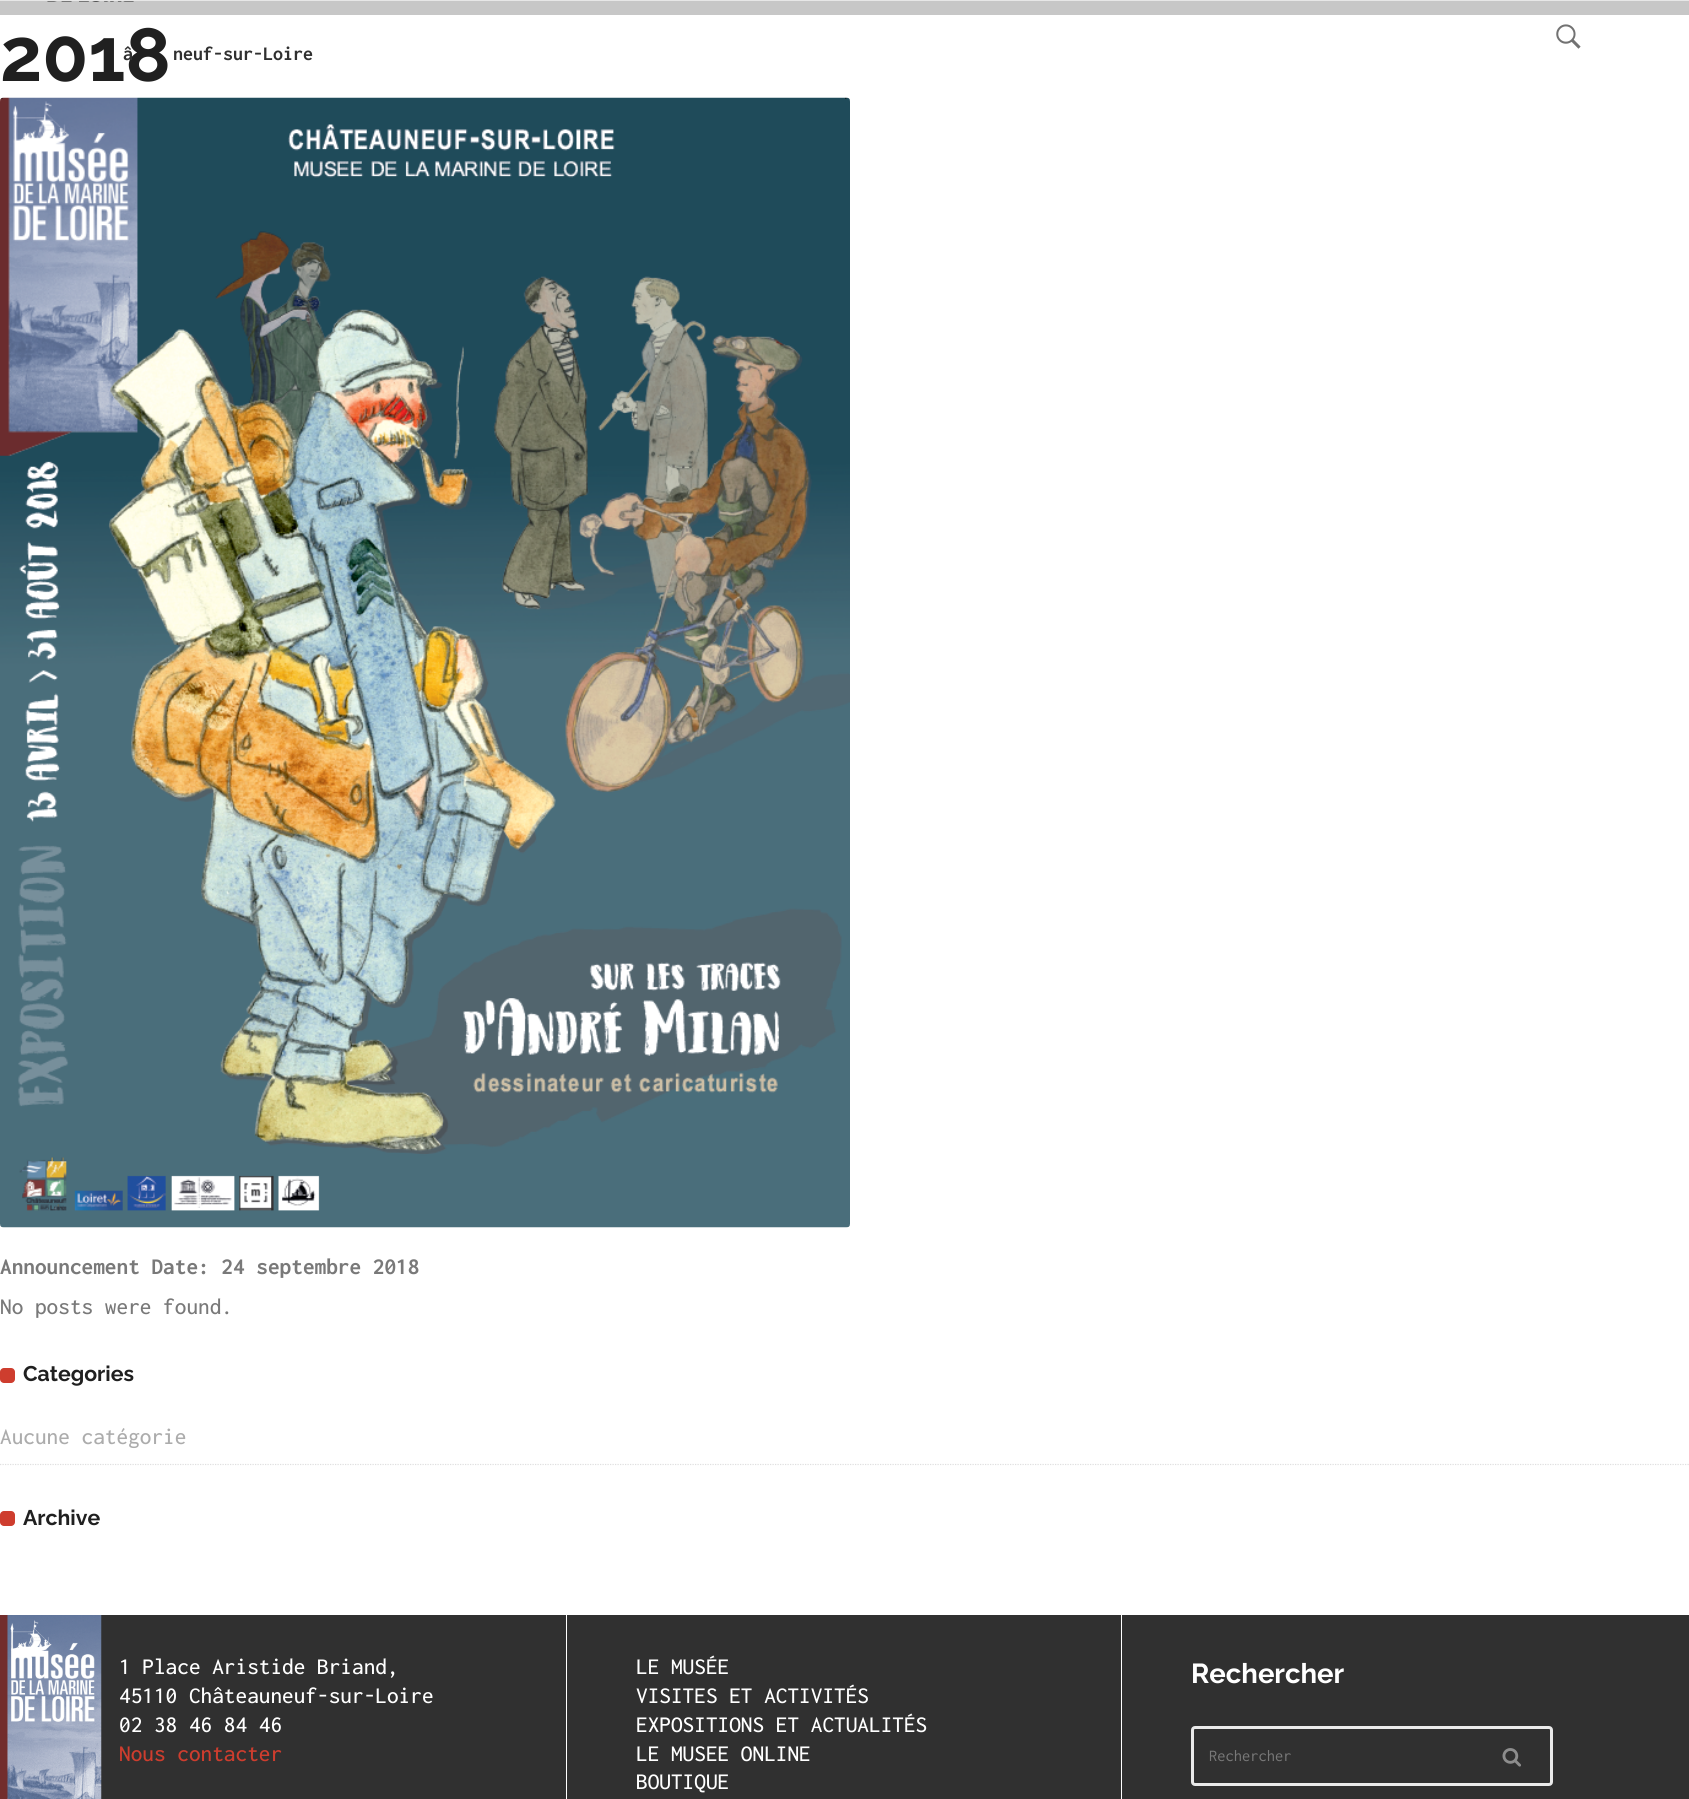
#include <cairo.h>
#include <math.h>
#include <stddef.h>

typedef struct { double x, y; const char *s; } line_t;

static void ink(cairo_t *ctx, unsigned color) {
    cairo_set_source_rgb(ctx, (color >> 16) / 255.0, (color >> 8 & 255) / 255.0, (color & 255) / 255.0);
}

static void round_path(cairo_t *ctx, double x, double y, double w, double h, double r) {
    cairo_new_sub_path(ctx);
    cairo_arc(ctx, x + w - r, y + h - r, r, 0, M_PI / 2);
    cairo_arc(ctx, x + r, y + h - r, r, M_PI / 2, M_PI);
    cairo_arc(ctx, x + r, y + r, r, M_PI, 1.5 * M_PI);
    cairo_arc(ctx, x + w - r, y + r, r, 1.5 * M_PI, 2 * M_PI);
    cairo_close_path(ctx);
}

static void paste(cairo_t *ctx, const char *path, double x, double y, double w, double h) {
    cairo_surface_t *image = cairo_image_surface_create_from_png(path);
    cairo_save(ctx);
    cairo_set_source_surface(ctx, image, x, y);
    cairo_rectangle(ctx, x, y, w, h);
    cairo_fill(ctx);
    cairo_restore(ctx);
    cairo_surface_destroy(image);
}

int main(void) {
    cairo_surface_t *surface = cairo_image_surface_create(CAIRO_FORMAT_RGB24, 1689, 1799);
    cairo_t *ctx = cairo_create(surface);
    cairo_font_options_t *options = cairo_font_options_create();
    cairo_font_options_set_hint_metrics(options, CAIRO_HINT_METRICS_OFF);
    cairo_font_options_set_hint_style(options, CAIRO_HINT_STYLE_NONE);
    cairo_set_font_options(ctx, options);
    cairo_set_miter_limit(ctx, 4);
    ink(ctx, 0xFFFFFF);
    cairo_paint(ctx);
    cairo_select_font_face(ctx, "Raleway", CAIRO_FONT_SLANT_NORMAL, CAIRO_FONT_WEIGHT_BOLD);
    cairo_set_font_size(ctx, 75);
    ink(ctx, 0x202020);
    cairo_move_to(ctx, 0, 81);
    cairo_show_text(ctx, "2018");
    paste(ctx, "media/1.png", 0, 97, 850, 1131);
    cairo_select_font_face(ctx, "Inconsolata", CAIRO_FONT_SLANT_NORMAL, CAIRO_FONT_WEIGHT_BOLD);
    cairo_set_font_size(ctx, 23.3);
    ink(ctx, 0x797979);
    cairo_move_to(ctx, 0, 1274);
    cairo_show_text(ctx, "Announcement Date: 24 septembre 2018");
    cairo_select_font_face(ctx, "Inconsolata Medium", CAIRO_FONT_SLANT_NORMAL, CAIRO_FONT_WEIGHT_NORMAL);
    cairo_move_to(ctx, 0, 1314);
    cairo_show_text(ctx, "No posts were found.");
    ink(ctx, 0xCE3D2E);
    round_path(ctx, 0, 1368, 15, 15, 4);
    cairo_fill(ctx);
    cairo_select_font_face(ctx, "Raleway", CAIRO_FONT_SLANT_NORMAL, CAIRO_FONT_WEIGHT_BOLD);
    cairo_set_font_size(ctx, 21.25);
    ink(ctx, 0x202020);
    cairo_move_to(ctx, 23, 1381);
    cairo_show_text(ctx, "Categories");
    cairo_new_path(ctx);
    cairo_move_to(ctx, 0, 1464.5);
    cairo_line_to(ctx, 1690, 1464.5);
    ink(ctx, 0xDFDFDF);
    cairo_set_line_width(ctx, 1.2);
    cairo_set_dash(ctx, (double[]){1.25, 1.25}, 2, 0);
    cairo_stroke(ctx);
    cairo_select_font_face(ctx, "Inconsolata Medium", CAIRO_FONT_SLANT_NORMAL, CAIRO_FONT_WEIGHT_NORMAL);
    cairo_set_font_size(ctx, 23.3);
    ink(ctx, 0xACACAC);
    cairo_move_to(ctx, 0, 1444);
    cairo_show_text(ctx, "Aucune catégorie");
    ink(ctx, 0xCE3D2E);
    round_path(ctx, 0, 1511, 15, 15, 4);
    cairo_fill(ctx);
    cairo_select_font_face(ctx, "Raleway", CAIRO_FONT_SLANT_NORMAL, CAIRO_FONT_WEIGHT_BOLD);
    cairo_set_font_size(ctx, 21.25);
    ink(ctx, 0x202020);
    cairo_move_to(ctx, 23, 1525);
    cairo_show_text(ctx, "Archive");
    ink(ctx, 0xC7C7C7);
    cairo_rectangle(ctx, 0, 1, 1689, 14);
    cairo_fill(ctx);
    paste(ctx, "media/2.png", 47, 1, 87, 1);
    ink(ctx, 0xE7E7E7);
    cairo_rectangle(ctx, 0, 0, 1689, 1);
    cairo_fill(ctx);
    paste(ctx, "media/3.png", 1556, 24, 25, 25);
    cairo_select_font_face(ctx, "Inconsolata", CAIRO_FONT_SLANT_NORMAL, CAIRO_FONT_WEIGHT_BOLD);
    cairo_set_font_size(ctx, 20);
    ink(ctx, 0x303030);
    cairo_move_to(ctx, 123, 60);
    cairo_show_text(ctx, "â");
    cairo_move_to(ctx, 173, 60);
    cairo_show_text(ctx, "neuf-sur-Loire");
    cairo_rectangle(ctx, 101, 1615, 1588, 184);
    cairo_fill(ctx);
    ink(ctx, 0xFFFFFF);
    cairo_rectangle(ctx, 566, 1615, 1, 184);
    cairo_fill(ctx);
    paste(ctx, "media/4.png", 0, 1615, 102, 184);
    cairo_select_font_face(ctx, "Inconsolata Medium", CAIRO_FONT_SLANT_NORMAL, CAIRO_FONT_WEIGHT_NORMAL);
    cairo_set_font_size(ctx, 23.3);
    {
        static const line_t items[] = {
            {119, 1674, "1 Place Aristide Briand,"},
            {119, 1703, "45110 Châteauneuf-sur-Loire"},
            {119, 1732, "02 38 46 84 46"},
        };
        for (size_t i = 0; i < sizeof items / sizeof *items; i++) {
            cairo_move_to(ctx, items[i].x, items[i].y);
            cairo_show_text(ctx, items[i].s);
        }
    }
    ink(ctx, 0xCE3D2E);
    cairo_move_to(ctx, 119, 1761);
    cairo_show_text(ctx, "Nous contacter");
    ink(ctx, 0xFFFFFF);
    cairo_rectangle(ctx, 1121, 1615, 1, 184);
    cairo_fill(ctx);
    {
        static const line_t items[] = {
            {636, 1674, "LE MUSÉE"},
            {636, 1703, "VISITES ET ACTIVITÉS"},
            {636, 1732, "EXPOSITIONS ET ACTUALITÉS"},
            {636, 1761, "LE MUSEE ONLINE"},
            {636, 1789, "BOUTIQUE"},
        };
        for (size_t i = 0; i < sizeof items / sizeof *items; i++) {
            cairo_move_to(ctx, items[i].x, items[i].y);
            cairo_show_text(ctx, items[i].s);
        }
    }
    cairo_select_font_face(ctx, "Raleway", CAIRO_FONT_SLANT_NORMAL, CAIRO_FONT_WEIGHT_BOLD);
    cairo_set_font_size(ctx, 27.5);
    cairo_move_to(ctx, 1191, 1683);
    cairo_show_text(ctx, "Rechercher");
    round_path(ctx, 1192.5, 1727.5, 359, 57, 2.5);
    ink(ctx, 0xEAEAEA);
    cairo_set_line_width(ctx, 3);
    cairo_set_dash(ctx, NULL, 0, 0);
    cairo_stroke(ctx);
    cairo_select_font_face(ctx, "Inconsolata", CAIRO_FONT_SLANT_NORMAL, CAIRO_FONT_WEIGHT_NORMAL);
    cairo_set_font_size(ctx, 16.5);
    ink(ctx, 0x797979);
    cairo_move_to(ctx, 1209, 1761);
    cairo_show_text(ctx, "Rechercher");
    paste(ctx, "media/5.png", 1502, 1748, 19, 19);
    cairo_surface_write_to_png(surface, "image.png");
    cairo_font_options_destroy(options);
    cairo_destroy(ctx);
    cairo_surface_destroy(surface);
    return 0;
}
